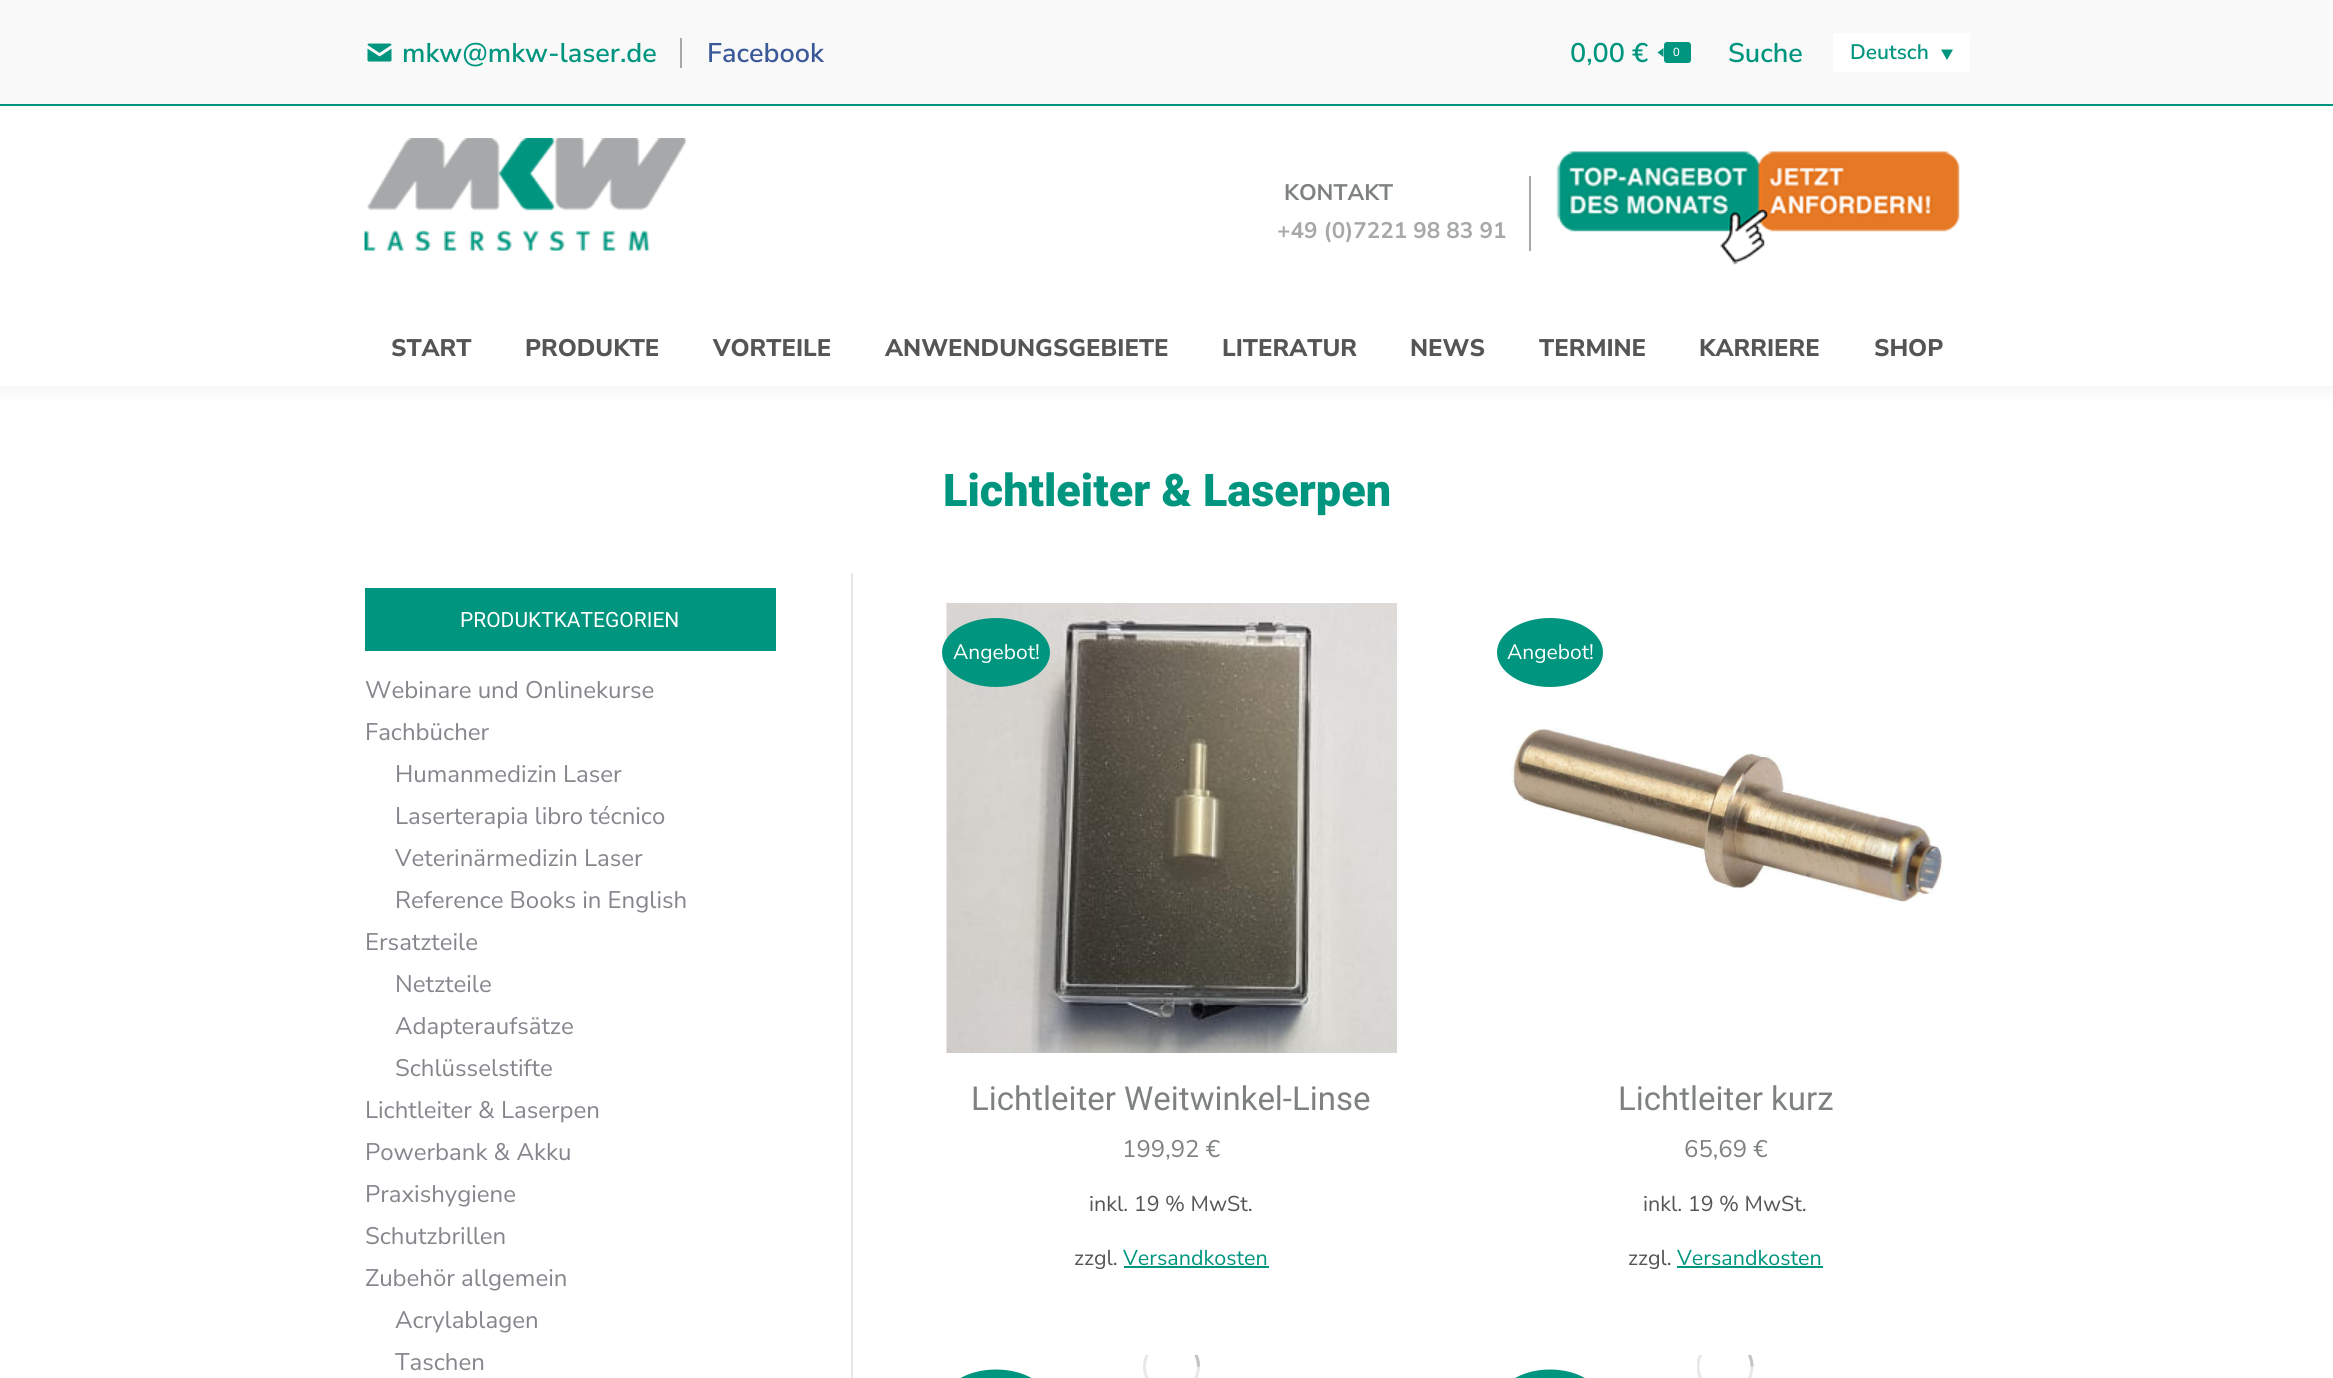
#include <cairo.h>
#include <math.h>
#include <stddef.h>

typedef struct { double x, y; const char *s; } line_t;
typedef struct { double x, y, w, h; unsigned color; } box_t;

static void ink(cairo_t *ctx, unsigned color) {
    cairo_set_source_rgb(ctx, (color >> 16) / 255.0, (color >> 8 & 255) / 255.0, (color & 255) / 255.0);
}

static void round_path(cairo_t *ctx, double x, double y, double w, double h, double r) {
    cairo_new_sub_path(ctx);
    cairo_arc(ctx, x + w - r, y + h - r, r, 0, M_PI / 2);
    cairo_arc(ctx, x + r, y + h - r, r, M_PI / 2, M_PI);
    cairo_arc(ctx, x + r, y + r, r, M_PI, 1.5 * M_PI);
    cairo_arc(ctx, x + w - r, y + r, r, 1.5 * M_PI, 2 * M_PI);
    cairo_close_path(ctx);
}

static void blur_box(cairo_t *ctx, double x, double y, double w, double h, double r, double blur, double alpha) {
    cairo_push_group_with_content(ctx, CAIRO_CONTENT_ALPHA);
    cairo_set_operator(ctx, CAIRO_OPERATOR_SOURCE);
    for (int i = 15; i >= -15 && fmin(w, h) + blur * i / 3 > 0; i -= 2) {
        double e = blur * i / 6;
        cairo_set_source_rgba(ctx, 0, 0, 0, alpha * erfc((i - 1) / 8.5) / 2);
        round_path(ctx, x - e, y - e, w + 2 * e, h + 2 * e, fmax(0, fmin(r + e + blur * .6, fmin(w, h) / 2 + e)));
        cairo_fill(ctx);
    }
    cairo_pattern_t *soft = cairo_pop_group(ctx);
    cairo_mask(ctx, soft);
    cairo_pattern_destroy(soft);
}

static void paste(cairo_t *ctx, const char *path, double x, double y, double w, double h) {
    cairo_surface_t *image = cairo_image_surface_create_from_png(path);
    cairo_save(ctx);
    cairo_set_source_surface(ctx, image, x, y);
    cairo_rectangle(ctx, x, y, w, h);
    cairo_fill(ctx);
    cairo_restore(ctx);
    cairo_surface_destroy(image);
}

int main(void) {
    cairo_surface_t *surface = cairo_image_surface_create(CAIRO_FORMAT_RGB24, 2333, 1378);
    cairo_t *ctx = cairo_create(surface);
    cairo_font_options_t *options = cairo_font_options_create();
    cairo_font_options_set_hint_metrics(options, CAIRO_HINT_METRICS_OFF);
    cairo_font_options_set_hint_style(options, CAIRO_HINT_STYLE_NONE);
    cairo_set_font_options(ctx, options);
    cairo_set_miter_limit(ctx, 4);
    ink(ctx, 0xFFFFFF);
    cairo_paint(ctx);
    ink(ctx, 0x000000);
    blur_box(ctx, -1, -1, 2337, 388, 0, 11, 0.07);
    {
        static const box_t items[] = {
            {0, 106, 2333, 280, 0xFFFFFF},
            {0, 0, 2333, 104, 0xF9F9F9},
            {680, 38, 2, 30, 0xA6A8A9},
        };
        for (size_t i = 0; i < sizeof items / sizeof *items; i++) {
            ink(ctx, items[i].color);
            cairo_rectangle(ctx, items[i].x, items[i].y, items[i].w, items[i].h);
            cairo_fill(ctx);
        }
    }
    paste(ctx, "media/1.png", 367, 43, 25, 19);
    cairo_select_font_face(ctx, "Nunito Sans SemiBold", CAIRO_FONT_SLANT_NORMAL, CAIRO_FONT_WEIGHT_NORMAL);
    cairo_set_font_size(ctx, 27);
    ink(ctx, 0x00957E);
    cairo_move_to(ctx, 402, 62);
    cairo_show_text(ctx, "mkw@mkw-laser.de");
    ink(ctx, 0x3B5998);
    cairo_move_to(ctx, 707, 62);
    cairo_show_text(ctx, "Facebook");
    ink(ctx, 0x00957E);
    cairo_move_to(ctx, 1570, 62);
    cairo_show_text(ctx, "0,00 €");
    round_path(ctx, 1664, 42, 27, 21, 3);
    cairo_fill(ctx);
    cairo_new_path(ctx);
    cairo_move_to(ctx, 1663.5, 48);
    cairo_line_to(ctx, 1663.5, 57);
    cairo_line_to(ctx, 1657.5, 52.5);
    cairo_close_path(ctx);
    cairo_fill(ctx);
    cairo_select_font_face(ctx, "Liberation Sans", CAIRO_FONT_SLANT_NORMAL, CAIRO_FONT_WEIGHT_NORMAL);
    cairo_set_font_size(ctx, 12);
    ink(ctx, 0xFFFFFF);
    cairo_move_to(ctx, 1673, 56);
    cairo_show_text(ctx, "0");
    cairo_select_font_face(ctx, "Nunito Sans SemiBold", CAIRO_FONT_SLANT_NORMAL, CAIRO_FONT_WEIGHT_NORMAL);
    cairo_set_font_size(ctx, 27);
    ink(ctx, 0x00957E);
    cairo_move_to(ctx, 1728, 62);
    cairo_show_text(ctx, "Suche");
    ink(ctx, 0xFFFFFF);
    cairo_rectangle(ctx, 1833, 33, 137, 39);
    cairo_fill(ctx);
    cairo_set_font_size(ctx, 21);
    ink(ctx, 0x00957E);
    cairo_move_to(ctx, 1850, 59);
    cairo_show_text(ctx, "Deutsch");
    cairo_new_path(ctx);
    cairo_move_to(ctx, 1941, 49.5);
    cairo_line_to(ctx, 1953, 49.5);
    cairo_line_to(ctx, 1947, 60);
    cairo_close_path(ctx);
    cairo_fill(ctx);
    cairo_rectangle(ctx, 0, 104, 2333, 2);
    cairo_fill(ctx);
    paste(ctx, "media/2.png", 364, 138, 322, 113);
    ink(ctx, 0xA6A8A9);
    cairo_rectangle(ctx, 1529, 176, 2, 75);
    cairo_fill(ctx);
    cairo_select_font_face(ctx, "Nunito Sans", CAIRO_FONT_SLANT_NORMAL, CAIRO_FONT_WEIGHT_BOLD);
    cairo_set_font_size(ctx, 22.5);
    ink(ctx, 0x7E8182);
    cairo_move_to(ctx, 1284, 200);
    cairo_show_text(ctx, "KONTAKT");
    ink(ctx, 0xA6A8A9);
    cairo_move_to(ctx, 1277, 238);
    cairo_show_text(ctx, "+49 (0)7221 98 83 91");
    paste(ctx, "media/3.png", 1556, 151, 404, 114);
    cairo_select_font_face(ctx, "Nunito Sans ExtraBold", CAIRO_FONT_SLANT_NORMAL, CAIRO_FONT_WEIGHT_NORMAL);
    cairo_set_font_size(ctx, 24);
    ink(ctx, 0x555555);
    {
        static const line_t items[] = {
            {391, 356, "START"},
            {525, 356, "PRODUKTE"},
            {713, 356, "VORTEILE"},
            {885, 356, "ANWENDUNGSGEBIETE"},
            {1222, 356, "LITERATUR"},
            {1410, 356, "NEWS"},
            {1539, 356, "TERMINE"},
            {1699, 356, "KARRIERE"},
            {1874, 356, "SHOP"},
        };
        for (size_t i = 0; i < sizeof items / sizeof *items; i++) {
            cairo_move_to(ctx, items[i].x, items[i].y);
            cairo_show_text(ctx, items[i].s);
        }
    }
    cairo_select_font_face(ctx, "Roboto Black", CAIRO_FONT_SLANT_NORMAL, CAIRO_FONT_WEIGHT_NORMAL);
    cairo_set_font_size(ctx, 45);
    ink(ctx, 0x00957E);
    cairo_move_to(ctx, 943, 506);
    cairo_show_text(ctx, "Lichtleiter & Laserpen");
    ink(ctx, 0xE7E7E7);
    cairo_rectangle(ctx, 851, 573, 2, 805);
    cairo_fill(ctx);
    ink(ctx, 0x00957E);
    cairo_rectangle(ctx, 365, 588, 411, 63);
    cairo_fill(ctx);
    cairo_select_font_face(ctx, "Roboto", CAIRO_FONT_SLANT_NORMAL, CAIRO_FONT_WEIGHT_NORMAL);
    cairo_set_font_size(ctx, 21);
    ink(ctx, 0xFFFFFF);
    cairo_move_to(ctx, 460, 627);
    cairo_show_text(ctx, "PRODUKTKATEGORIEN");
    cairo_select_font_face(ctx, "Nunito Sans", CAIRO_FONT_SLANT_NORMAL, CAIRO_FONT_WEIGHT_NORMAL);
    cairo_set_font_size(ctx, 24);
    ink(ctx, 0x85868C);
    {
        static const line_t items[] = {
            {365, 698, "Webinare und Onlinekurse"},
            {365, 740, "Fachbücher"},
            {395, 782, "Humanmedizin Laser"},
            {395, 824, "Laserterapia libro técnico"},
            {395, 866, "Veterinärmedizin Laser"},
            {395, 908, "Reference Books in English"},
            {365, 950, "Ersatzteile"},
            {395, 992, "Netzteile"},
            {395, 1034, "Adapteraufsätze"},
            {395, 1076, "Schlüsselstifte"},
            {365, 1118, "Lichtleiter & Laserpen"},
            {365, 1160, "Powerbank & Akku"},
            {365, 1202, "Praxishygiene"},
            {365, 1244, "Schutzbrillen"},
            {365, 1286, "Zubehör allgemein"},
            {395, 1328, "Acrylablagen"},
            {395, 1370, "Taschen"},
        };
        for (size_t i = 0; i < sizeof items / sizeof *items; i++) {
            cairo_move_to(ctx, items[i].x, items[i].y);
            cairo_show_text(ctx, items[i].s);
        }
    }
    paste(ctx, "media/4.png", 946, 603, 451, 450);
    ink(ctx, 0x00957E);
    cairo_new_path(ctx);
    cairo_move_to(ctx, 996, 618);
    cairo_curve_to(ctx, 1026, 618, 1050, 633.5, 1050, 652.5);
    cairo_curve_to(ctx, 1050, 671.5, 1026, 687, 996, 687);
    cairo_curve_to(ctx, 966, 687, 942, 671.5, 942, 652.5);
    cairo_curve_to(ctx, 942, 633.5, 966, 618, 996, 618);
    cairo_close_path(ctx);
    cairo_fill(ctx);
    cairo_set_font_size(ctx, 21);
    ink(ctx, 0xFFFFFF);
    cairo_move_to(ctx, 953, 659);
    cairo_show_text(ctx, "Angebot!");
    cairo_select_font_face(ctx, "Roboto", CAIRO_FONT_SLANT_NORMAL, CAIRO_FONT_WEIGHT_NORMAL);
    cairo_set_font_size(ctx, 33);
    ink(ctx, 0x7E8182);
    cairo_move_to(ctx, 971, 1110);
    cairo_show_text(ctx, "Lichtleiter Weitwinkel-Linse");
    cairo_select_font_face(ctx, "Nunito Sans", CAIRO_FONT_SLANT_NORMAL, CAIRO_FONT_WEIGHT_NORMAL);
    cairo_set_font_size(ctx, 24);
    cairo_move_to(ctx, 1122, 1157);
    cairo_show_text(ctx, "199,92 €");
    cairo_set_font_size(ctx, 21.5);
    ink(ctx, 0x555555);
    cairo_move_to(ctx, 1089, 1211);
    cairo_show_text(ctx, "inkl. 19 % MwSt.");
    cairo_move_to(ctx, 1074, 1265);
    cairo_show_text(ctx, "zzgl.");
    ink(ctx, 0x00957E);
    cairo_move_to(ctx, 1123, 1265);
    cairo_show_text(ctx, "Versandkosten");
    cairo_rectangle(ctx, 1124, 1266, 145, 2);
    cairo_fill(ctx);
    cairo_new_path(ctx);
    cairo_move_to(ctx, 1550, 618);
    cairo_curve_to(ctx, 1579.5, 618, 1603, 633.5, 1603, 652.5);
    cairo_curve_to(ctx, 1603, 671.5, 1579.5, 687, 1550, 687);
    cairo_curve_to(ctx, 1520.5, 687, 1497, 671.5, 1497, 652.5);
    cairo_curve_to(ctx, 1497, 633.5, 1520.5, 618, 1550, 618);
    cairo_close_path(ctx);
    cairo_fill(ctx);
    cairo_set_font_size(ctx, 21);
    ink(ctx, 0xFFFFFF);
    cairo_move_to(ctx, 1507, 659);
    cairo_show_text(ctx, "Angebot!");
    paste(ctx, "media/5.png", 1511, 726, 433, 179);
    cairo_select_font_face(ctx, "Roboto", CAIRO_FONT_SLANT_NORMAL, CAIRO_FONT_WEIGHT_NORMAL);
    cairo_set_font_size(ctx, 33);
    ink(ctx, 0x7E8182);
    cairo_move_to(ctx, 1618, 1110);
    cairo_show_text(ctx, "Lichtleiter kurz");
    cairo_select_font_face(ctx, "Nunito Sans", CAIRO_FONT_SLANT_NORMAL, CAIRO_FONT_WEIGHT_NORMAL);
    cairo_set_font_size(ctx, 24);
    cairo_move_to(ctx, 1684, 1157);
    cairo_show_text(ctx, "65,69 €");
    cairo_set_font_size(ctx, 21.5);
    ink(ctx, 0x555555);
    cairo_move_to(ctx, 1643, 1211);
    cairo_show_text(ctx, "inkl. 19 % MwSt.");
    cairo_move_to(ctx, 1628, 1265);
    cairo_show_text(ctx, "zzgl.");
    ink(ctx, 0x00957E);
    cairo_move_to(ctx, 1677, 1265);
    cairo_show_text(ctx, "Versandkosten");
    cairo_rectangle(ctx, 1677, 1266, 146, 2);
    cairo_fill(ctx);
    cairo_new_path(ctx);
    cairo_move_to(ctx, 996, 1369.5);
    cairo_curve_to(ctx, 1026, 1369.5, 1050, 1385, 1050, 1404);
    cairo_curve_to(ctx, 1050, 1423, 1026, 1438.5, 996, 1438.5);
    cairo_curve_to(ctx, 966, 1438.5, 942, 1423, 942, 1404);
    cairo_curve_to(ctx, 942, 1385, 966, 1369.5, 996, 1369.5);
    cairo_close_path(ctx);
    cairo_fill(ctx);
    cairo_save(ctx);
    cairo_rectangle(ctx, 1143, 1355, 57, 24);
    cairo_clip(ctx);
    cairo_arc(ctx, 1171.5, 1366.5, 27, 0, 2 * M_PI);
    ink(ctx, 0xE8E8E8);
    cairo_set_line_width(ctx, 3);
    cairo_stroke(ctx);
    cairo_new_path(ctx);
    cairo_move_to(ctx, 1198.5, 1366.5);
    cairo_curve_to(ctx, 1198.5, 1351.5, 1186.5, 1339.5, 1171.5, 1339.5);
    cairo_set_source_rgba(ctx, 0.333, 0.333, 0.333, 0.25);
    cairo_stroke(ctx);
    cairo_restore(ctx);
    cairo_new_path(ctx);
    cairo_move_to(ctx, 1550, 1369.5);
    cairo_curve_to(ctx, 1579.5, 1369.5, 1603, 1385, 1603, 1404);
    cairo_curve_to(ctx, 1603, 1423, 1579.5, 1438.5, 1550, 1438.5);
    cairo_curve_to(ctx, 1520.5, 1438.5, 1497, 1423, 1497, 1404);
    cairo_curve_to(ctx, 1497, 1385, 1520.5, 1369.5, 1550, 1369.5);
    cairo_close_path(ctx);
    cairo_fill(ctx);
    cairo_save(ctx);
    cairo_rectangle(ctx, 1697, 1355, 57, 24);
    cairo_clip(ctx);
    cairo_arc(ctx, 1725, 1366.5, 27, 0, 2 * M_PI);
    ink(ctx, 0xE8E8E8);
    cairo_set_line_width(ctx, 3);
    cairo_stroke(ctx);
    cairo_new_path(ctx);
    cairo_move_to(ctx, 1752, 1366.5);
    cairo_curve_to(ctx, 1752, 1351.5, 1740, 1339.5, 1725, 1339.5);
    cairo_set_source_rgba(ctx, 0.333, 0.333, 0.333, 0.25);
    cairo_stroke(ctx);
    cairo_restore(ctx);
    cairo_surface_write_to_png(surface, "image.png");
    cairo_font_options_destroy(options);
    cairo_destroy(ctx);
    cairo_surface_destroy(surface);
    return 0;
}
